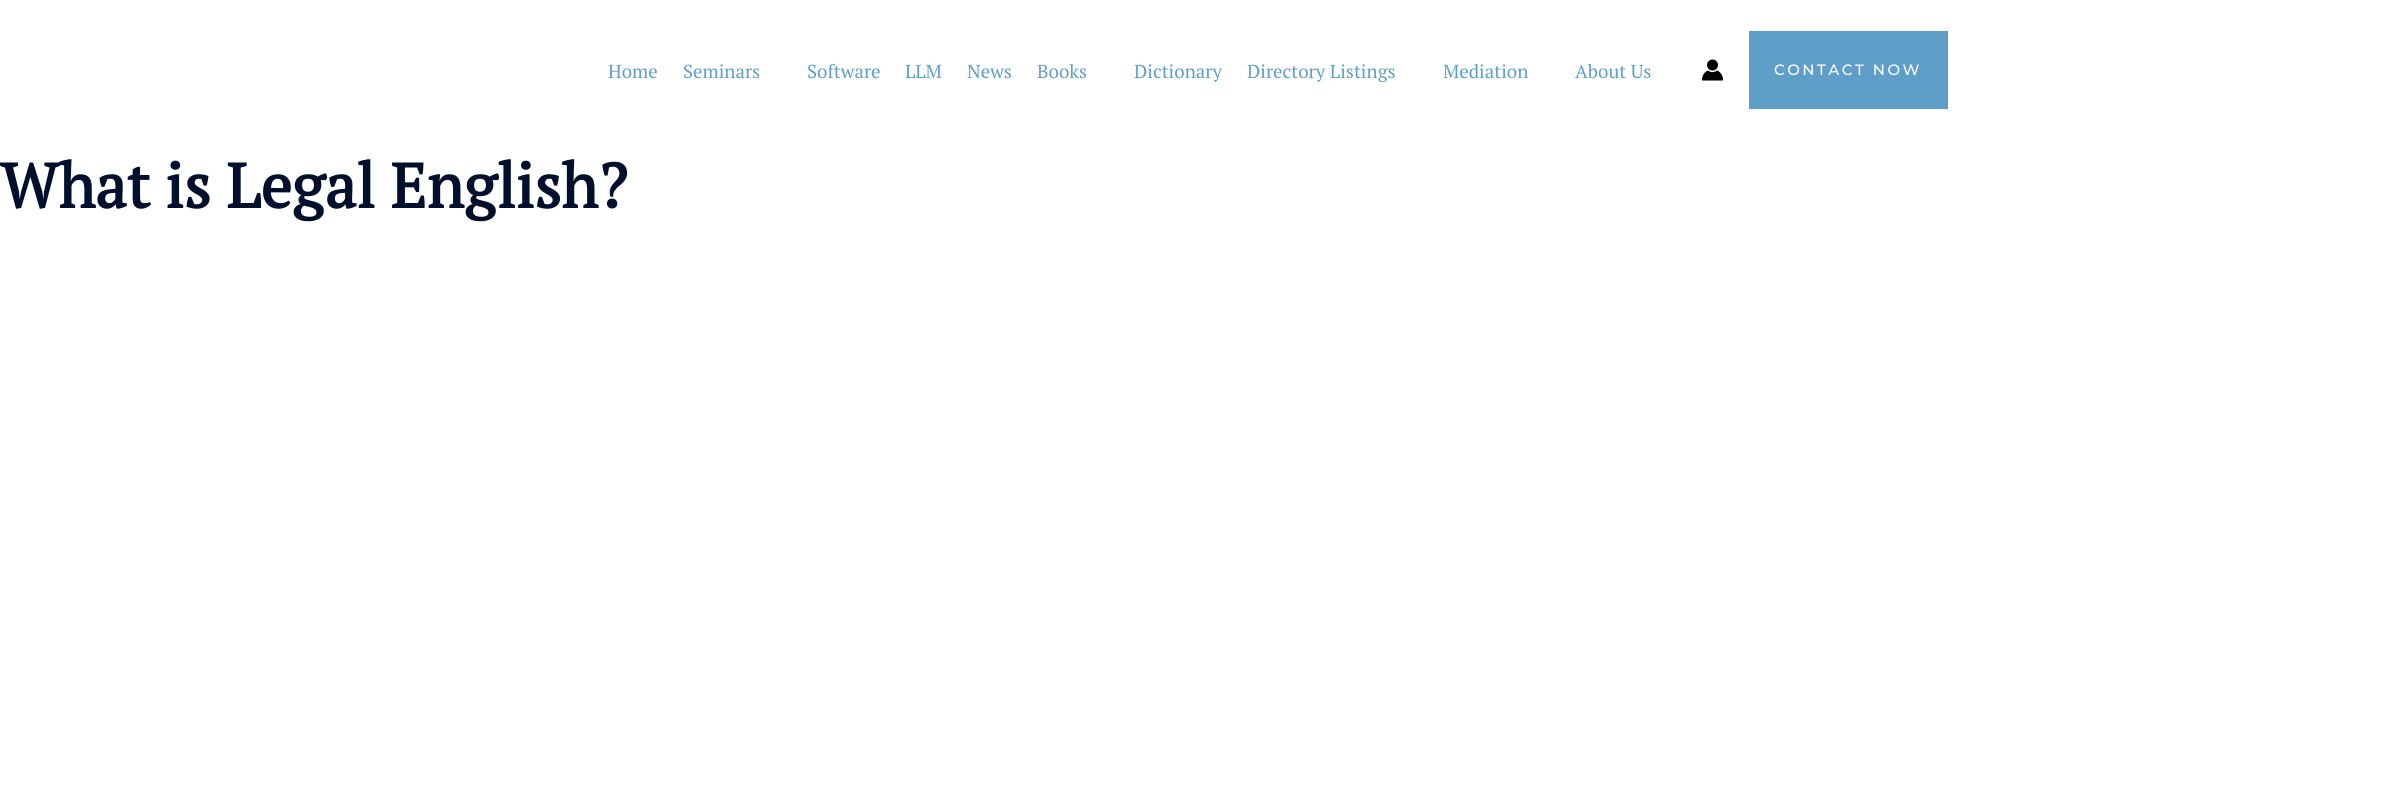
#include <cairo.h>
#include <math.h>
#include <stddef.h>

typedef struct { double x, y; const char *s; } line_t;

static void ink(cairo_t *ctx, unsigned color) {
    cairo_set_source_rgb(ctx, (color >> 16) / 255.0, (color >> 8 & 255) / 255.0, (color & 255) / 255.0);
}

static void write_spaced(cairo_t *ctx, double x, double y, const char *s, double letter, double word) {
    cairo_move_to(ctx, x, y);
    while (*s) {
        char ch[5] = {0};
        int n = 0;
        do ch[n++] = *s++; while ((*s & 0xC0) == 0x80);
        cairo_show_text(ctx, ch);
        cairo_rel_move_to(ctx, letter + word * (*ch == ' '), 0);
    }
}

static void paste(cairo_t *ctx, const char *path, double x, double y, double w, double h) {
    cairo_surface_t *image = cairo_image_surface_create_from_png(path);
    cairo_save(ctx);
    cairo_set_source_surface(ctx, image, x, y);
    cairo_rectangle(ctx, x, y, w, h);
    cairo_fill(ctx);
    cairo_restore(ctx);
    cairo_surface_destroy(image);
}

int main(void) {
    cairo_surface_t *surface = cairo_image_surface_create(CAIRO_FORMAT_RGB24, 2393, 811);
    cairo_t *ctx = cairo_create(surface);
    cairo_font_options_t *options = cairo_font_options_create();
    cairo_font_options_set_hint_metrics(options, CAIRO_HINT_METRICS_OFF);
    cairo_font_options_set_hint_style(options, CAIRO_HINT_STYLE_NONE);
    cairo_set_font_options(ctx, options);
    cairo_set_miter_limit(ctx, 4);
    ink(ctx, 0xFFFFFF);
    cairo_paint(ctx);
    cairo_select_font_face(ctx, "PT Serif", CAIRO_FONT_SLANT_NORMAL, CAIRO_FONT_WEIGHT_NORMAL);
    cairo_set_font_size(ctx, 18.75);
    ink(ctx, 0x609ECA);
    {
        static const line_t items[] = {
            {608, 78, "Home"},
            {683, 78, "Seminars"},
            {807, 78, "Software"},
            {905, 78, "LLM"},
            {967, 78, "News"},
            {1037, 78, "Books"},
            {1134, 78, "Dictionary"},
            {1247, 78, "Directory Listings"},
            {1443, 78, "Mediation"},
            {1575, 78, "About Us"},
        };
        for (size_t i = 0; i < sizeof items / sizeof *items; i++) {
            cairo_move_to(ctx, items[i].x, items[i].y);
            cairo_show_text(ctx, items[i].s);
        }
    }
    paste(ctx, "media/1.png", 1702, 59, 22, 22);
    cairo_rectangle(ctx, 1749, 31, 199, 78);
    cairo_fill(ctx);
    cairo_select_font_face(ctx, "Montserrat Thin", CAIRO_FONT_SLANT_NORMAL, CAIRO_FONT_WEIGHT_NORMAL);
    cairo_set_font_size(ctx, 15);
    ink(ctx, 0xFFFFFF);
    write_spaced(ctx, 1774, 75, "CONTACT NOW", 2.5, 0);
    cairo_select_font_face(ctx, "PT Serif", CAIRO_FONT_SLANT_NORMAL, CAIRO_FONT_WEIGHT_BOLD);
    cairo_set_font_size(ctx, 62.5);
    ink(ctx, 0x000F2B);
    cairo_move_to(ctx, 0, 208);
    cairo_show_text(ctx, "What is Legal English?");
    cairo_surface_write_to_png(surface, "image.png");
    cairo_font_options_destroy(options);
    cairo_destroy(ctx);
    cairo_surface_destroy(surface);
    return 0;
}
